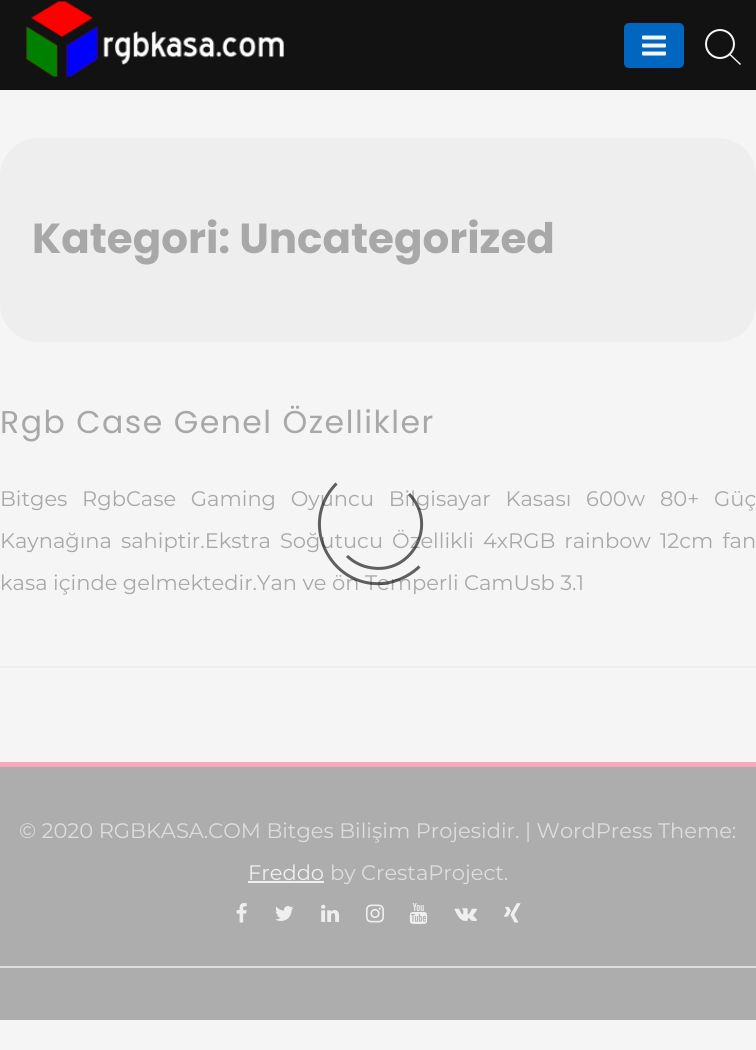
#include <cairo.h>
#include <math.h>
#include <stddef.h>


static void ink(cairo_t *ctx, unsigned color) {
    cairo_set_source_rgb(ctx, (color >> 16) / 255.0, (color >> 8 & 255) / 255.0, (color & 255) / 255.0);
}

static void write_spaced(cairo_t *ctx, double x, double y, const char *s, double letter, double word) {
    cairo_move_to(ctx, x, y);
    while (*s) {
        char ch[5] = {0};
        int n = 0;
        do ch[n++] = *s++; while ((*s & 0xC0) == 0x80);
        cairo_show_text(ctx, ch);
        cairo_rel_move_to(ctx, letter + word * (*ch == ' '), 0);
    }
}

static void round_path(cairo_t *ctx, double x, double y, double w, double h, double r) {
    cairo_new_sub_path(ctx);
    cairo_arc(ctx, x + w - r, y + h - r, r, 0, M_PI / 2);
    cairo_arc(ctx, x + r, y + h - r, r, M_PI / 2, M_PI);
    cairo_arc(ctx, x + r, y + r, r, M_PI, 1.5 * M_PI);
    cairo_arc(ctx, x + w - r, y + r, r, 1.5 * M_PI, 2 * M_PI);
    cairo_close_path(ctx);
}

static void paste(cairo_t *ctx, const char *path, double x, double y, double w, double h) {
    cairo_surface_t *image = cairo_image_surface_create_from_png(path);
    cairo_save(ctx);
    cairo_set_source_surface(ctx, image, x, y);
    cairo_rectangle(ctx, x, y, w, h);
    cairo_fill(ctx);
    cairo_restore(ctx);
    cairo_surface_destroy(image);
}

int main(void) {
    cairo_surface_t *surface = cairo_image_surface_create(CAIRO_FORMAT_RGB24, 756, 1050);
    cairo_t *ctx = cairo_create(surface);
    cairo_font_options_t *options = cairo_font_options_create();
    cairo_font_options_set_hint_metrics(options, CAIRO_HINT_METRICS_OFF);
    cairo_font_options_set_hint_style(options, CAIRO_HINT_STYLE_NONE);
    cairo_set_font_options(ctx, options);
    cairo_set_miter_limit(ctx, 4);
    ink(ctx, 0xF5F5F5);
    cairo_paint(ctx);
    ink(ctx, 0x121212);
    cairo_rectangle(ctx, 0, 0, 756, 90);
    cairo_fill(ctx);
    paste(ctx, "media/1.png", 26, 1, 258, 76);
    ink(ctx, 0x0066BF);
    round_path(ctx, 624, 23, 60, 45, 5);
    cairo_fill(ctx);
    paste(ctx, "media/2.png", 642, 35, 24, 21);
    cairo_arc(ctx, 720, 44, 14, 0, 2 * M_PI);
    ink(ctx, 0xF5F5F5);
    cairo_stroke(ctx);
    cairo_new_path(ctx);
    cairo_move_to(ctx, 730, 53.5);
    cairo_line_to(ctx, 741, 64);
    cairo_line_to(ctx, 740, 65);
    cairo_line_to(ctx, 729, 54.5);
    cairo_close_path(ctx);
    cairo_fill(ctx);
    ink(ctx, 0xEEEEEE);
    round_path(ctx, 0, 138, 756, 204, 38);
    cairo_fill(ctx);
    cairo_select_font_face(ctx, "Poppins", CAIRO_FONT_SLANT_NORMAL, CAIRO_FONT_WEIGHT_BOLD);
    cairo_set_font_size(ctx, 42);
    ink(ctx, 0xA8A8A8);
    cairo_move_to(ctx, 32, 253);
    cairo_show_text(ctx, "Kategori: Uncategorized");
    ink(ctx, 0xEEEEEE);
    cairo_rectangle(ctx, 0, 666, 756, 2);
    cairo_fill(ctx);
    cairo_select_font_face(ctx, "Poppins", CAIRO_FONT_SLANT_NORMAL, CAIRO_FONT_WEIGHT_NORMAL);
    cairo_set_font_size(ctx, 31.5);
    ink(ctx, 0xA8A8A8);
    write_spaced(ctx, 0, 433, "Rgb Case Genel Özellikler", 1.5, 0);
    cairo_select_font_face(ctx, "Montserrat", CAIRO_FONT_SLANT_NORMAL, CAIRO_FONT_WEIGHT_NORMAL);
    cairo_set_font_size(ctx, 21);
    write_spaced(ctx, 0, 506, "Bitges RgbCase Gaming Oyuncu Bilgisayar Kasası 600w 80+ Güç", 0, 9.25);
    write_spaced(ctx, 0, 548, "Kaynağına sahiptir.Ekstra Soğutucu Özellikli 4xRGB rainbow 12cm fan", 0, 3.5);
    cairo_move_to(ctx, 0, 590);
    cairo_show_text(ctx, "kasa içinde gelmektedir.Yan ve ön Temperli CamUsb 3.1");
    ink(ctx, 0xADADAD);
    cairo_rectangle(ctx, 0, 767, 756, 253);
    cairo_fill(ctx);
    ink(ctx, 0xF8A9BE);
    cairo_rectangle(ctx, 0, 762, 756, 5);
    cairo_fill(ctx);
    ink(ctx, 0xDDDDDD);
    cairo_move_to(ctx, 19, 838);
    cairo_show_text(ctx, "© 2020 RGBKASA.COM Bitges Bilişim Projesidir. | WordPress Theme:");
    ink(ctx, 0xEFEFEF);
    cairo_move_to(ctx, 248, 880);
    cairo_show_text(ctx, "Freddo");
    cairo_rectangle(ctx, 248, 881, 76, 2);
    cairo_fill(ctx);
    ink(ctx, 0xDDDDDD);
    cairo_move_to(ctx, 330, 880);
    cairo_show_text(ctx, "by CrestaProject.");
    paste(ctx, "media/3.png", 236, 903, 11, 20);
    paste(ctx, "media/4.png", 275, 906, 19, 15);
    paste(ctx, "media/5.png", 321, 904, 18, 18);
    paste(ctx, "media/6.png", 366, 904, 18, 19);
    paste(ctx, "media/7.png", 409, 903, 19, 21);
    paste(ctx, "media/8.png", 454, 908, 23, 13);
    paste(ctx, "media/9.png", 504, 903, 17, 20);
    cairo_rectangle(ctx, 0, 966, 756, 2);
    cairo_fill(ctx);
    cairo_new_path(ctx);
    cairo_move_to(ctx, 419.5, 566.5);
    cairo_curve_to(ctx, 411, 574.5, 400.5, 580, 389.5, 582.5);
    cairo_curve_to(ctx, 333, 593.5, 296, 524.5, 336.5, 483.5);
    cairo_set_source_rgba(ctx, 0.071, 0.071, 0.071, 0.66);
    cairo_set_line_width(ctx, 3);
    cairo_stroke(ctx);
    cairo_new_path(ctx);
    cairo_move_to(ctx, 409, 494);
    cairo_curve_to(ctx, 439, 524.5, 411.5, 576, 369.5, 567.5);
    cairo_curve_to(ctx, 361, 566, 353.5, 562, 347, 556);
    cairo_stroke(ctx);
    cairo_surface_write_to_png(surface, "image.png");
    cairo_font_options_destroy(options);
    cairo_destroy(ctx);
    cairo_surface_destroy(surface);
    return 0;
}
